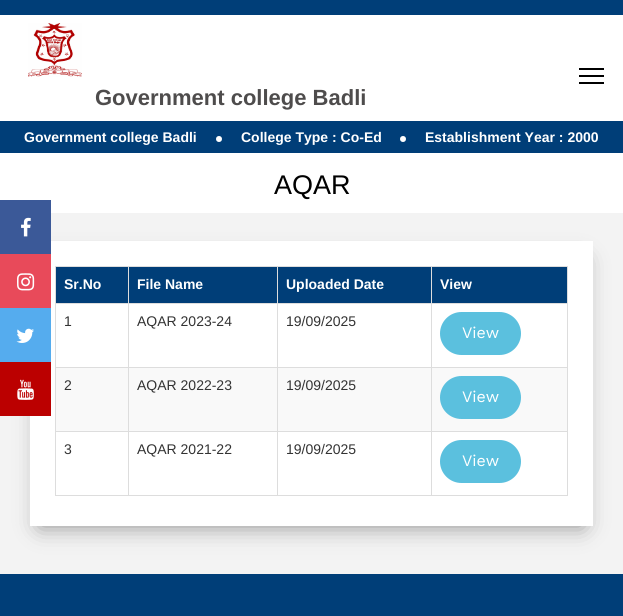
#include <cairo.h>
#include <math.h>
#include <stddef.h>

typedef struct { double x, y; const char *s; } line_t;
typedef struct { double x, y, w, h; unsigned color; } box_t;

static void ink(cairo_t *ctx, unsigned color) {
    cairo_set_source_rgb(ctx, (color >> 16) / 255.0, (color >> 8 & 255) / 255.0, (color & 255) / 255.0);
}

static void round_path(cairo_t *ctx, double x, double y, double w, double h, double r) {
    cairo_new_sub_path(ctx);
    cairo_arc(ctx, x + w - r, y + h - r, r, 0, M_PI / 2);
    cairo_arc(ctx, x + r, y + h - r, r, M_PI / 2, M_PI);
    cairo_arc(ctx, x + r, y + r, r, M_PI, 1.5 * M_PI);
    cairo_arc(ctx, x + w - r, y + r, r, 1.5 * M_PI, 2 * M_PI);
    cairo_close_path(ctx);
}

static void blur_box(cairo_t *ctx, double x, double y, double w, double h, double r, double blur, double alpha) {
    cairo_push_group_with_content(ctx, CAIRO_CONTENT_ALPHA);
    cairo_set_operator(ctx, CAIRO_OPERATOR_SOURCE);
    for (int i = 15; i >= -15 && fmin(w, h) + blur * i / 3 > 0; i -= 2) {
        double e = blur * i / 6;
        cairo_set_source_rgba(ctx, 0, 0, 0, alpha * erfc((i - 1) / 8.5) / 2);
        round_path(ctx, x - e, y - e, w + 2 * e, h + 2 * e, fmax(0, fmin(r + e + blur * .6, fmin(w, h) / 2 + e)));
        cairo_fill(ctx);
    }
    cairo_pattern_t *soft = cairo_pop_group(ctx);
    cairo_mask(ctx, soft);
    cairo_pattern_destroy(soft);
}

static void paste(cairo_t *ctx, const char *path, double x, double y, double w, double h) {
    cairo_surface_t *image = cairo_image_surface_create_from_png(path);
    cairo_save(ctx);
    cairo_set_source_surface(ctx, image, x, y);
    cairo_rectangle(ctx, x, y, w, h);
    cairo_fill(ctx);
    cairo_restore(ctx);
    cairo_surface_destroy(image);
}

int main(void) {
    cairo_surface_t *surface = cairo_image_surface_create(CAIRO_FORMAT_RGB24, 623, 616);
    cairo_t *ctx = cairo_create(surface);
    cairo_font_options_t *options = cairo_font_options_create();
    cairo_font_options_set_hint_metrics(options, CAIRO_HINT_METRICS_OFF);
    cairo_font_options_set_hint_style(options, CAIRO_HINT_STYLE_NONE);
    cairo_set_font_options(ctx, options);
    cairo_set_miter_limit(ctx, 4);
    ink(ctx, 0xFFFFFF);
    cairo_paint(ctx);
    {
        static const box_t items[] = {
            {579, 75, 25, 2, 0x000000},
            {579, 68, 25, 2, 0x000000},
            {579, 82, 25, 2, 0x000000},
            {0, 0, 623, 15, 0x003E78},
        };
        for (size_t i = 0; i < sizeof items / sizeof *items; i++) {
            ink(ctx, items[i].color);
            cairo_rectangle(ctx, items[i].x, items[i].y, items[i].w, items[i].h);
            cairo_fill(ctx);
        }
    }
    paste(ctx, "media/1.png", 28, 23, 54, 54);
    cairo_select_font_face(ctx, "Liberation Sans", CAIRO_FONT_SLANT_NORMAL, CAIRO_FONT_WEIGHT_BOLD);
    cairo_set_font_size(ctx, 22);
    ink(ctx, 0x4E4C4C);
    cairo_move_to(ctx, 95, 105);
    cairo_show_text(ctx, "Government college Badli");
    ink(ctx, 0x003E78);
    cairo_rectangle(ctx, 0, 121, 623, 32);
    cairo_fill(ctx);
    cairo_set_font_size(ctx, 14);
    ink(ctx, 0xFFFFFF);
    cairo_move_to(ctx, 24, 142);
    cairo_show_text(ctx, "Government college Badli");
    cairo_new_path(ctx);
    cairo_arc(ctx, 219, 139, 3, 0, 2 * M_PI);
    cairo_fill(ctx);
    cairo_move_to(ctx, 241, 142);
    cairo_show_text(ctx, "College Type : Co-Ed");
    cairo_new_path(ctx);
    cairo_arc(ctx, 403, 139, 3, 0, 2 * M_PI);
    cairo_fill(ctx);
    cairo_move_to(ctx, 425, 142);
    cairo_show_text(ctx, "Establishment Year : 2000");
    cairo_select_font_face(ctx, "Liberation Sans", CAIRO_FONT_SLANT_NORMAL, CAIRO_FONT_WEIGHT_NORMAL);
    cairo_set_font_size(ctx, 27);
    ink(ctx, 0x000000);
    cairo_move_to(ctx, 274, 194);
    cairo_show_text(ctx, "AQAR");
    ink(ctx, 0xF3F3F3);
    cairo_rectangle(ctx, 0, 213, 623, 361);
    cairo_fill(ctx);
    ink(ctx, 0x000000);
    blur_box(ctx, 40, 261, 543, 265, 0, 11.5, 0.43);
    ink(ctx, 0xFFFFFF);
    cairo_rectangle(ctx, 30, 241, 563, 285);
    cairo_fill(ctx);
    ink(ctx, 0x3B5998);
    cairo_rectangle(ctx, 0, 200, 51, 54);
    cairo_fill(ctx);
    paste(ctx, "media/2.png", 21, 217, 10, 20);
    ink(ctx, 0xE84A5A);
    cairo_rectangle(ctx, 0, 254, 51, 54);
    cairo_fill(ctx);
    paste(ctx, "media/3.png", 17, 273, 18, 18);
    ink(ctx, 0x55ACEE);
    cairo_rectangle(ctx, 0, 308, 51, 54);
    cairo_fill(ctx);
    paste(ctx, "media/4.png", 16, 328, 18, 15);
    ink(ctx, 0xBB0000);
    cairo_rectangle(ctx, 0, 362, 51, 54);
    cairo_fill(ctx);
    paste(ctx, "media/5.png", 17, 379, 17, 21);
    {
        static const box_t items[] = {
            {56, 267, 511, 36, 0x003E78},
            {431, 266, 137, 1, 0xDDDDDD},
            {431, 303, 137, 1, 0xDDDDDD},
            {431, 367, 137, 1, 0xDDDDDD},
            {56, 368, 511, 63, 0xF9F9F9},
            {431, 431, 137, 1, 0xDDDDDD},
            {567, 431, 1, 65, 0xDDDDDD},
            {431, 495, 137, 1, 0xDDDDDD},
            {431, 431, 1, 65, 0xDDDDDD},
            {277, 431, 155, 1, 0xDDDDDD},
            {431, 367, 1, 65, 0xDDDDDD},
            {277, 367, 155, 1, 0xDDDDDD},
            {431, 303, 1, 65, 0xDDDDDD},
            {277, 303, 155, 1, 0xDDDDDD},
            {431, 266, 1, 38, 0xDDDDDD},
            {277, 266, 155, 1, 0xDDDDDD},
            {277, 495, 155, 1, 0xDDDDDD},
            {277, 431, 1, 65, 0xDDDDDD},
            {128, 431, 150, 1, 0xDDDDDD},
            {277, 367, 1, 65, 0xDDDDDD},
            {128, 367, 150, 1, 0xDDDDDD},
            {277, 303, 1, 65, 0xDDDDDD},
            {128, 303, 150, 1, 0xDDDDDD},
            {277, 266, 1, 38, 0xDDDDDD},
            {128, 266, 150, 1, 0xDDDDDD},
            {128, 495, 150, 1, 0xDDDDDD},
            {128, 431, 1, 65, 0xDDDDDD},
            {55, 431, 74, 1, 0xDDDDDD},
            {128, 367, 1, 65, 0xDDDDDD},
            {55, 367, 74, 1, 0xDDDDDD},
            {128, 303, 1, 65, 0xDDDDDD},
            {55, 303, 74, 1, 0xDDDDDD},
            {128, 266, 1, 38, 0xDDDDDD},
            {55, 266, 74, 1, 0xDDDDDD},
            {55, 495, 74, 1, 0xDDDDDD},
            {55, 431, 1, 65, 0xDDDDDD},
            {55, 367, 1, 65, 0xDDDDDD},
            {55, 303, 1, 65, 0xDDDDDD},
            {55, 266, 1, 38, 0xDDDDDD},
        };
        for (size_t i = 0; i < sizeof items / sizeof *items; i++) {
            ink(ctx, items[i].color);
            cairo_rectangle(ctx, items[i].x, items[i].y, items[i].w, items[i].h);
            cairo_fill(ctx);
        }
    }
    cairo_select_font_face(ctx, "Liberation Sans", CAIRO_FONT_SLANT_NORMAL, CAIRO_FONT_WEIGHT_BOLD);
    cairo_set_font_size(ctx, 14);
    ink(ctx, 0xFFFFFF);
    {
        static const line_t items[] = {
            {64, 289, "Sr.No"},
            {137, 289, "File Name"},
            {286, 289, "Uploaded Date"},
        };
        for (size_t i = 0; i < sizeof items / sizeof *items; i++) {
            cairo_move_to(ctx, items[i].x, items[i].y);
            cairo_show_text(ctx, items[i].s);
        }
    }
    {
        static const box_t items[] = {
            {567, 367, 1, 65, 0xDDDDDD},
            {567, 303, 1, 65, 0xDDDDDD},
            {567, 266, 1, 38, 0xDDDDDD},
        };
        for (size_t i = 0; i < sizeof items / sizeof *items; i++) {
            ink(ctx, items[i].color);
            cairo_rectangle(ctx, items[i].x, items[i].y, items[i].w, items[i].h);
            cairo_fill(ctx);
        }
    }
    ink(ctx, 0xFFFFFF);
    cairo_move_to(ctx, 440, 289);
    cairo_show_text(ctx, "View");
    cairo_select_font_face(ctx, "Liberation Sans", CAIRO_FONT_SLANT_NORMAL, CAIRO_FONT_WEIGHT_NORMAL);
    ink(ctx, 0x333333);
    {
        static const line_t items[] = {
            {64, 326, "1"},
            {137, 326, "AQAR 2023-24"},
            {286, 326, "19/09/2025"},
        };
        for (size_t i = 0; i < sizeof items / sizeof *items; i++) {
            cairo_move_to(ctx, items[i].x, items[i].y);
            cairo_show_text(ctx, items[i].s);
        }
    }
    ink(ctx, 0x5BC0DE);
    round_path(ctx, 441, 313, 79, 41, 20.5);
    cairo_fill_preserve(ctx);
    cairo_stroke(ctx);
    cairo_select_font_face(ctx, "Work Sans", CAIRO_FONT_SLANT_NORMAL, CAIRO_FONT_WEIGHT_NORMAL);
    cairo_set_font_size(ctx, 16);
    ink(ctx, 0xFFFFFF);
    cairo_move_to(ctx, 462, 338);
    cairo_show_text(ctx, "View");
    cairo_select_font_face(ctx, "Liberation Sans", CAIRO_FONT_SLANT_NORMAL, CAIRO_FONT_WEIGHT_NORMAL);
    cairo_set_font_size(ctx, 14);
    ink(ctx, 0x333333);
    {
        static const line_t items[] = {
            {64, 390, "2"},
            {137, 390, "AQAR 2022-23"},
            {286, 390, "19/09/2025"},
        };
        for (size_t i = 0; i < sizeof items / sizeof *items; i++) {
            cairo_move_to(ctx, items[i].x, items[i].y);
            cairo_show_text(ctx, items[i].s);
        }
    }
    ink(ctx, 0x5BC0DE);
    round_path(ctx, 441, 377, 79, 41, 20.5);
    cairo_fill_preserve(ctx);
    cairo_stroke(ctx);
    cairo_select_font_face(ctx, "Work Sans", CAIRO_FONT_SLANT_NORMAL, CAIRO_FONT_WEIGHT_NORMAL);
    cairo_set_font_size(ctx, 16);
    ink(ctx, 0xFFFFFF);
    cairo_move_to(ctx, 462, 402);
    cairo_show_text(ctx, "View");
    cairo_select_font_face(ctx, "Liberation Sans", CAIRO_FONT_SLANT_NORMAL, CAIRO_FONT_WEIGHT_NORMAL);
    cairo_set_font_size(ctx, 14);
    ink(ctx, 0x333333);
    {
        static const line_t items[] = {
            {64, 454, "3"},
            {137, 454, "AQAR 2021-22"},
            {286, 454, "19/09/2025"},
        };
        for (size_t i = 0; i < sizeof items / sizeof *items; i++) {
            cairo_move_to(ctx, items[i].x, items[i].y);
            cairo_show_text(ctx, items[i].s);
        }
    }
    ink(ctx, 0x5BC0DE);
    round_path(ctx, 441, 441, 79, 41, 20.5);
    cairo_fill_preserve(ctx);
    cairo_stroke(ctx);
    cairo_select_font_face(ctx, "Work Sans", CAIRO_FONT_SLANT_NORMAL, CAIRO_FONT_WEIGHT_NORMAL);
    cairo_set_font_size(ctx, 16);
    ink(ctx, 0xFFFFFF);
    cairo_move_to(ctx, 462, 466);
    cairo_show_text(ctx, "View");
    ink(ctx, 0x003E78);
    cairo_rectangle(ctx, 0, 574, 623, 42);
    cairo_fill(ctx);
    cairo_surface_write_to_png(surface, "image.png");
    cairo_font_options_destroy(options);
    cairo_destroy(ctx);
    cairo_surface_destroy(surface);
    return 0;
}
